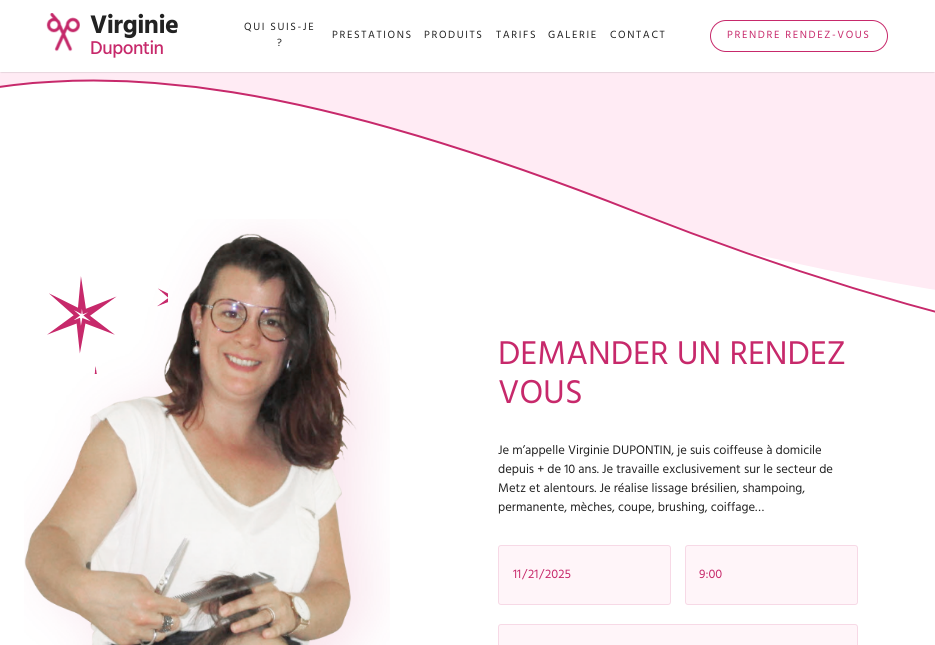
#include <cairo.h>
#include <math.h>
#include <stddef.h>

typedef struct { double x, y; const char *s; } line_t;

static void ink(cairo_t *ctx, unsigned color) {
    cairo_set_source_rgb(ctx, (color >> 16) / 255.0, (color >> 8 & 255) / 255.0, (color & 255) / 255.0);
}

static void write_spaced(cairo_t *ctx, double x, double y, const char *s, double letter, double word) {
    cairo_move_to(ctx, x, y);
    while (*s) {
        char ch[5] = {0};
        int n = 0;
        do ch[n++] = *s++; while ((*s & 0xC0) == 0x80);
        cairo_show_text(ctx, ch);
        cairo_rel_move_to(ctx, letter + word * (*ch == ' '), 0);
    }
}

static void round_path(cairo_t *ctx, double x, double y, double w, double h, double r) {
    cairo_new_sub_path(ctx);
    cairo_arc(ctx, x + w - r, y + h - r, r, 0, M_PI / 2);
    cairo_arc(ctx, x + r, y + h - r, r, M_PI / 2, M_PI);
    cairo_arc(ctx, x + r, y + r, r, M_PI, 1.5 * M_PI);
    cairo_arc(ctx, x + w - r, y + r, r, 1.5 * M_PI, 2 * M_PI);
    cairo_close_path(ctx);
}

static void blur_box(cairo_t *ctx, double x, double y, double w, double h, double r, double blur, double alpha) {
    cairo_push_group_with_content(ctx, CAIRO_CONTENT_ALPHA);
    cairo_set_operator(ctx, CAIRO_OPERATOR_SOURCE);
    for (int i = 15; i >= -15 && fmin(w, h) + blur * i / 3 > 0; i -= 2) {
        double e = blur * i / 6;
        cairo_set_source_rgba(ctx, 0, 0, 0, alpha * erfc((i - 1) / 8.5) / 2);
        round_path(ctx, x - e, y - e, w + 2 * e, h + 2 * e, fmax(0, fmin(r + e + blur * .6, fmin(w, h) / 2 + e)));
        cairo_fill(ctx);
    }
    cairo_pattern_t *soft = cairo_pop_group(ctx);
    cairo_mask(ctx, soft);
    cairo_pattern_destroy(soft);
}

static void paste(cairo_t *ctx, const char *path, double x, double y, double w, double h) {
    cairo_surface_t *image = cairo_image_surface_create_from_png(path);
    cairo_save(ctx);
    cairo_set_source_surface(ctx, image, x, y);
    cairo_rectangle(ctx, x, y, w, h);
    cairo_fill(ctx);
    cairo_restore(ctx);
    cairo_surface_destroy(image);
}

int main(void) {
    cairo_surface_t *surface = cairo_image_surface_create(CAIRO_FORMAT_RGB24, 935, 645);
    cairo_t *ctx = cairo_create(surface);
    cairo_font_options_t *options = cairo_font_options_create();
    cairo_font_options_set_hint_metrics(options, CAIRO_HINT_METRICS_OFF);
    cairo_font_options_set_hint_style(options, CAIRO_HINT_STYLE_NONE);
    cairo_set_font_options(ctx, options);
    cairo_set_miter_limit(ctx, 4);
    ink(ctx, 0xFFFFFF);
    cairo_paint(ctx);
    paste(ctx, "media/2.png", 0, 72, 935, 241);
    ink(ctx, 0x000000);
    blur_box(ctx, 1, 1, 933, 70, 0, 1, 1);
    ink(ctx, 0xFFFFFF);
    cairo_rectangle(ctx, 0, 0, 935, 72);
    cairo_fill(ctx);
    paste(ctx, "media/1.png", 46, 13, 34, 39);
    cairo_select_font_face(ctx, "Hind", CAIRO_FONT_SLANT_NORMAL, CAIRO_FONT_WEIGHT_BOLD);
    cairo_set_font_size(ctx, 26);
    ink(ctx, 0x222222);
    write_spaced(ctx, 90, 33, "Virginie", -0.5, 0);
    cairo_select_font_face(ctx, "Hind Medium", CAIRO_FONT_SLANT_NORMAL, CAIRO_FONT_WEIGHT_NORMAL);
    cairo_set_font_size(ctx, 19);
    ink(ctx, 0xC7296B);
    write_spaced(ctx, 90, 54, "Dupontin", -0.5, 0);
    cairo_select_font_face(ctx, "Hind", CAIRO_FONT_SLANT_NORMAL, CAIRO_FONT_WEIGHT_NORMAL);
    cairo_set_font_size(ctx, 10.75);
    ink(ctx, 0x222222);
    {
        static const line_t items[] = {
            {244, 30, "QUI SUIS-JE"},
            {277, 46, "?"},
            {332, 38, "PRESTATIONS"},
            {424, 38, "PRODUITS"},
            {496, 38, "TARIFS"},
            {548, 38, "GALERIE"},
            {610, 38, "CONTACT"},
        };
        for (size_t i = 0; i < sizeof items / sizeof *items; i++) {
            write_spaced(ctx, items[i].x, items[i].y, items[i].s, 1.6, 0);
        }
    }
    round_path(ctx, 710.5, 20.5, 177, 31, 15.5);
    ink(ctx, 0xC7296B);
    cairo_set_line_width(ctx, 1);
    cairo_stroke(ctx);
    write_spaced(ctx, 727, 38, "PRENDRE RENDEZ-VOUS", 1.6, 0);
    paste(ctx, "media/4.png", 47, 276, 121, 98);
    paste(ctx, "media/3.png", 24, 219, 366, 426);
    cairo_set_font_size(ctx, 33.75);
    cairo_move_to(ctx, 498, 364);
    cairo_show_text(ctx, "DEMANDER UN RENDEZ");
    cairo_move_to(ctx, 498, 403);
    cairo_show_text(ctx, "VOUS");
    cairo_set_font_size(ctx, 12.7);
    ink(ctx, 0x222222);
    {
        static const line_t items[] = {
            {498, 454, "Je m’appelle Virginie DUPONTIN, je suis coiffeuse à domicile"},
            {498, 473, "depuis + de 10 ans. Je travaille exclusivement sur le secteur de"},
            {498, 492, "Metz et alentours. Je réalise lissage brésilien, shampoing,"},
            {498, 511, "permanente, mèches, coupe, brushing, coiffage…"},
        };
        for (size_t i = 0; i < sizeof items / sizeof *items; i++) {
            cairo_move_to(ctx, items[i].x, items[i].y);
            cairo_show_text(ctx, items[i].s);
        }
    }
    ink(ctx, 0xFFF5F9);
    round_path(ctx, 498.5, 545.5, 172, 59, 2.5);
    cairo_fill_preserve(ctx);
    ink(ctx, 0xF7D9E6);
    cairo_stroke(ctx);
    ink(ctx, 0xC7296B);
    {
        static const line_t items[] = {
            {513, 578, "11"},
            {522, 578, "/"},
            {528, 578, "21"},
            {539, 578, "/"},
            {545, 578, "2025"},
        };
        for (size_t i = 0; i < sizeof items / sizeof *items; i++) {
            cairo_move_to(ctx, items[i].x, items[i].y);
            cairo_show_text(ctx, items[i].s);
        }
    }
    ink(ctx, 0xFFF5F9);
    round_path(ctx, 685.5, 545.5, 172, 59, 2.5);
    cairo_fill_preserve(ctx);
    ink(ctx, 0xF7D9E6);
    cairo_stroke(ctx);
    ink(ctx, 0xC7296B);
    cairo_move_to(ctx, 699, 578);
    cairo_show_text(ctx, "9:00");
    ink(ctx, 0xFFF5F9);
    round_path(ctx, 498.5, 624.5, 359, 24, 2.5);
    cairo_fill_preserve(ctx);
    ink(ctx, 0xF7D9E6);
    cairo_stroke(ctx);
    cairo_surface_write_to_png(surface, "image.png");
    cairo_font_options_destroy(options);
    cairo_destroy(ctx);
    cairo_surface_destroy(surface);
    return 0;
}
